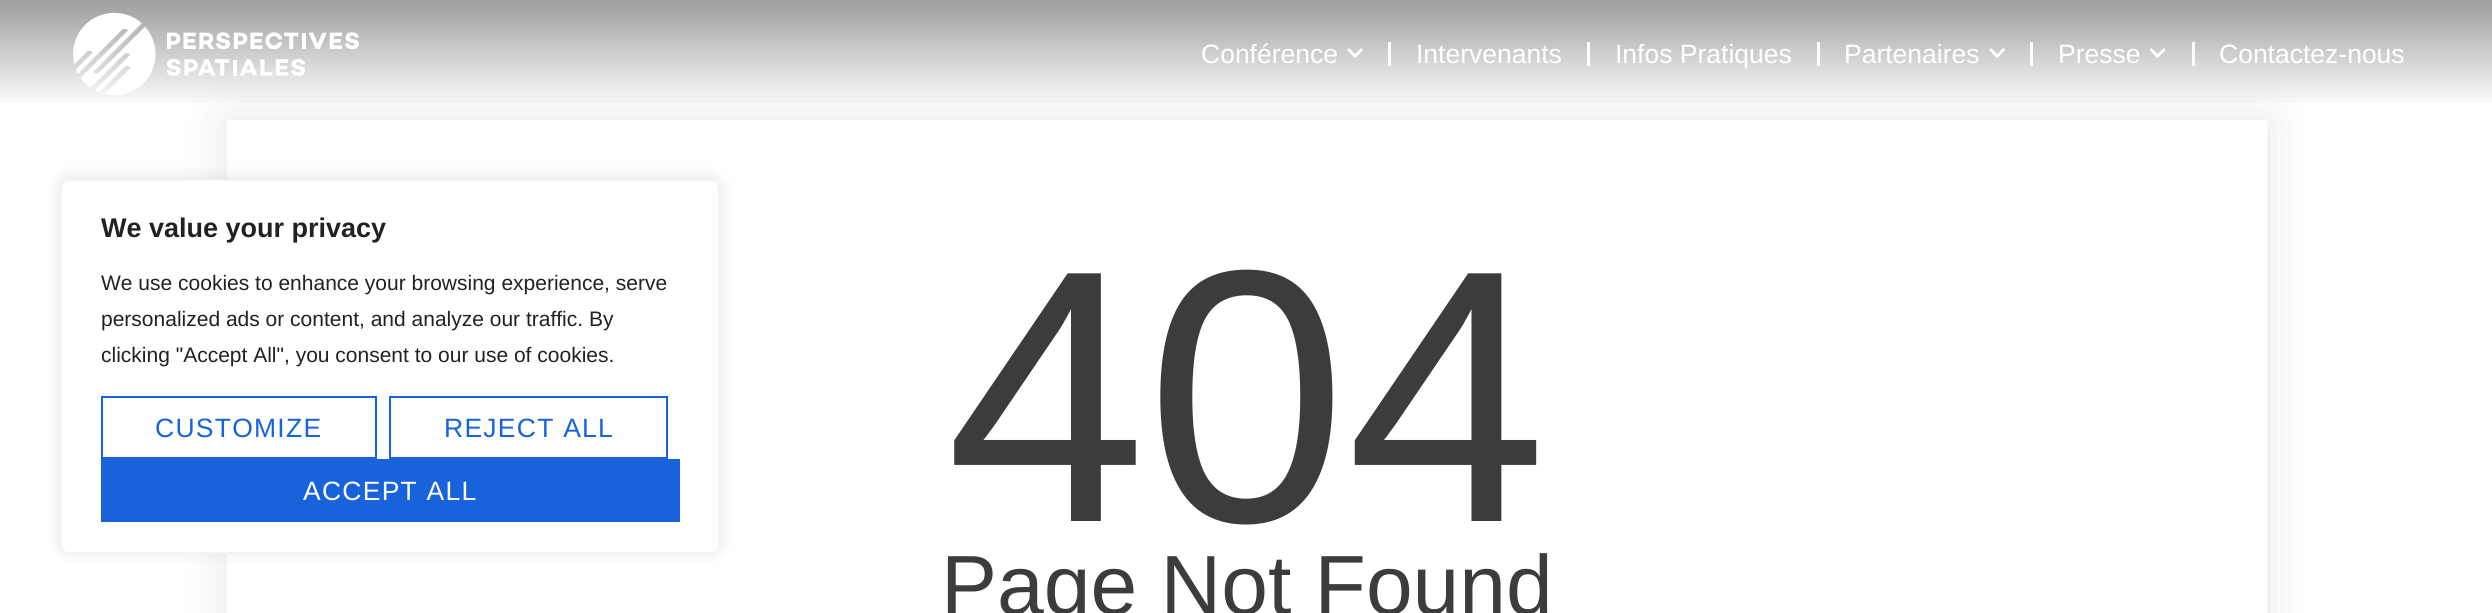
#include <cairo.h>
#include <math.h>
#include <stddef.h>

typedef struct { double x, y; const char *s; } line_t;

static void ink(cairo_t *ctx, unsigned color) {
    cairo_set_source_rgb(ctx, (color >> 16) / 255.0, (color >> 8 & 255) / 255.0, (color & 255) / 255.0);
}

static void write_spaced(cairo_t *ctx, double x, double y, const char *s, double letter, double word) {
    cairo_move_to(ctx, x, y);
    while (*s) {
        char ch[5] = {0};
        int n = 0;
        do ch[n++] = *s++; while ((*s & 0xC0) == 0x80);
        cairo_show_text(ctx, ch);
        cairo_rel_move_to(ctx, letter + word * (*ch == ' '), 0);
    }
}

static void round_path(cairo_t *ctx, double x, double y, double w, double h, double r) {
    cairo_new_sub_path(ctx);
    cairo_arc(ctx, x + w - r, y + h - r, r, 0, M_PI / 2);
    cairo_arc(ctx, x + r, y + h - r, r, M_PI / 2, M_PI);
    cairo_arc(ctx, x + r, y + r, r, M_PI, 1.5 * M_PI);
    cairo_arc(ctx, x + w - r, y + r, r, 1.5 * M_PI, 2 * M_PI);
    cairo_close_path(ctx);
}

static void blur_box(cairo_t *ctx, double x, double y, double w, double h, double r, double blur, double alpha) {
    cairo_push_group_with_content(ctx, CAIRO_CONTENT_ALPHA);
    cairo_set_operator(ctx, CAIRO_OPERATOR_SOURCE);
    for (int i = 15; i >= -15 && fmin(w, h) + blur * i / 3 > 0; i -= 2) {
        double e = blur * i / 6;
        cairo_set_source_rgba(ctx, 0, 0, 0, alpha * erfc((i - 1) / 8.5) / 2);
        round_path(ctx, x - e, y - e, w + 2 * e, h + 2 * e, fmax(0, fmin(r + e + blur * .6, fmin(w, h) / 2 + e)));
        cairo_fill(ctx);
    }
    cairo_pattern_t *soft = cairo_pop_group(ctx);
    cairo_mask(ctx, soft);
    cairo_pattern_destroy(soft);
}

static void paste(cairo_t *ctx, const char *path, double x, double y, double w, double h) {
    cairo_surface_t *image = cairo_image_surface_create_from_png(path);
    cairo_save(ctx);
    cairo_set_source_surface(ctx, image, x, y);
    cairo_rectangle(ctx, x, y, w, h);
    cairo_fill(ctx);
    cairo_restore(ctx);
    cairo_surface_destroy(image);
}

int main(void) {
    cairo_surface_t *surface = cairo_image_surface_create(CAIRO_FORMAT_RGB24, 2492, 613);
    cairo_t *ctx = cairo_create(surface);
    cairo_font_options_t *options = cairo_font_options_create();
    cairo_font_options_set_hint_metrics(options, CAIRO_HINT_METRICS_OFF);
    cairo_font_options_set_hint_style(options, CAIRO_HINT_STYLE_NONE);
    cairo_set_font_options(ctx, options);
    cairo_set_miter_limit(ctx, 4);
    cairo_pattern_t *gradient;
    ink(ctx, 0xFFFFFF);
    cairo_paint(ctx);
    cairo_save(ctx);
    cairo_set_fill_rule(ctx, CAIRO_FILL_RULE_EVEN_ODD);
    cairo_new_path(ctx);
    cairo_move_to(ctx, 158, 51);
    cairo_line_to(ctx, 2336, 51);
    cairo_line_to(ctx, 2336, 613);
    cairo_line_to(ctx, 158, 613);
    cairo_close_path(ctx);
    cairo_move_to(ctx, 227, 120);
    cairo_line_to(ctx, 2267, 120);
    cairo_line_to(ctx, 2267, 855);
    cairo_line_to(ctx, 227, 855);
    cairo_close_path(ctx);
    cairo_clip(ctx);
    ink(ctx, 0x000000);
    blur_box(ctx, 227, 120, 2040, 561, 0, 22.5, 0.1);
    cairo_restore(ctx);
    gradient = cairo_pattern_create_linear(1247, 0, 1247, 108);
    cairo_pattern_add_color_stop_rgba(gradient, 0, 0.235, 0.235, 0.235, 0.5);
    cairo_pattern_add_color_stop_rgba(gradient, 1, 0.235, 0.235, 0.235, 0);
    cairo_set_source(ctx, gradient);
    cairo_pattern_destroy(gradient);
    cairo_rectangle(ctx, 0, 0, 2492, 103);
    cairo_fill(ctx);
    paste(ctx, "media/1.png", 73, 12, 286, 83);
    cairo_select_font_face(ctx, "Liberation Sans", CAIRO_FONT_SLANT_NORMAL, CAIRO_FONT_WEIGHT_NORMAL);
    cairo_set_font_size(ctx, 26.5);
    ink(ctx, 0xFFFFFF);
    cairo_move_to(ctx, 1201, 63);
    cairo_show_text(ctx, "Conférence");
    paste(ctx, "media/2.png", 1347, 48, 16, 10);
    cairo_rectangle(ctx, 1388, 42, 3, 24);
    cairo_fill(ctx);
    cairo_move_to(ctx, 1416, 63);
    cairo_show_text(ctx, "Intervenants");
    cairo_rectangle(ctx, 1587, 42, 3, 24);
    cairo_fill(ctx);
    cairo_move_to(ctx, 1615, 63);
    cairo_show_text(ctx, "Infos Pratiques");
    cairo_rectangle(ctx, 1817, 42, 3, 24);
    cairo_fill(ctx);
    cairo_move_to(ctx, 1844, 63);
    cairo_show_text(ctx, "Partenaires");
    paste(ctx, "media/2.png", 1989, 48, 16, 10);
    cairo_rectangle(ctx, 2030, 42, 3, 24);
    cairo_fill(ctx);
    cairo_move_to(ctx, 2058, 63);
    cairo_show_text(ctx, "Presse");
    paste(ctx, "media/3.png", 2149, 48, 17, 10);
    cairo_rectangle(ctx, 2192, 42, 3, 24);
    cairo_fill(ctx);
    cairo_move_to(ctx, 2219, 63);
    cairo_show_text(ctx, "Contactez-nous");
    ink(ctx, 0xACABAB);
    blur_box(ctx, 60, 177, 660, 375, 9, 7.5, 0.3);
    ink(ctx, 0xFFFFFF);
    round_path(ctx, 61, 180, 658, 373, 8);
    cairo_fill_preserve(ctx);
    ink(ctx, 0xF4F4F4);
    cairo_stroke(ctx);
    cairo_select_font_face(ctx, "Liberation Sans", CAIRO_FONT_SLANT_NORMAL, CAIRO_FONT_WEIGHT_BOLD);
    cairo_set_font_size(ctx, 27);
    ink(ctx, 0x212121);
    cairo_move_to(ctx, 101, 237);
    cairo_show_text(ctx, "We value your privacy");
    cairo_select_font_face(ctx, "Liberation Sans", CAIRO_FONT_SLANT_NORMAL, CAIRO_FONT_WEIGHT_NORMAL);
    cairo_set_font_size(ctx, 21);
    {
        static const line_t items[] = {
            {101, 290, "We use cookies to enhance your browsing experience, serve"},
            {101, 326, "personalized ads or content, and analyze our traffic. By"},
            {101, 362, "clicking \"Accept All\", you consent to our use of cookies."},
        };
        for (size_t i = 0; i < sizeof items / sizeof *items; i++) {
            cairo_move_to(ctx, items[i].x, items[i].y);
            cairo_show_text(ctx, items[i].s);
        }
    }
    cairo_rectangle(ctx, 102, 397, 274, 61);
    ink(ctx, 0x1863DC);
    cairo_stroke(ctx);
    cairo_set_font_size(ctx, 26.5);
    write_spaced(ctx, 155, 437, "CUSTOMIZE", 1.25, 0);
    cairo_rectangle(ctx, 390, 397, 277, 61);
    cairo_stroke(ctx);
    write_spaced(ctx, 444, 437, "REJECT ALL", 1.25, 0);
    cairo_rectangle(ctx, 101, 459, 579, 63);
    cairo_fill(ctx);
    ink(ctx, 0xFFFFFF);
    write_spaced(ctx, 303, 500, "ACCEPT ALL", 1.25, 0);
    cairo_set_font_size(ctx, 360);
    ink(ctx, 0x3C3C3C);
    cairo_move_to(ctx, 946, 521);
    cairo_show_text(ctx, "404");
    cairo_set_font_size(ctx, 84);
    cairo_move_to(ctx, 941, 614);
    cairo_show_text(ctx, "Page Not Found");
    cairo_surface_write_to_png(surface, "image.png");
    cairo_font_options_destroy(options);
    cairo_destroy(ctx);
    cairo_surface_destroy(surface);
    return 0;
}
